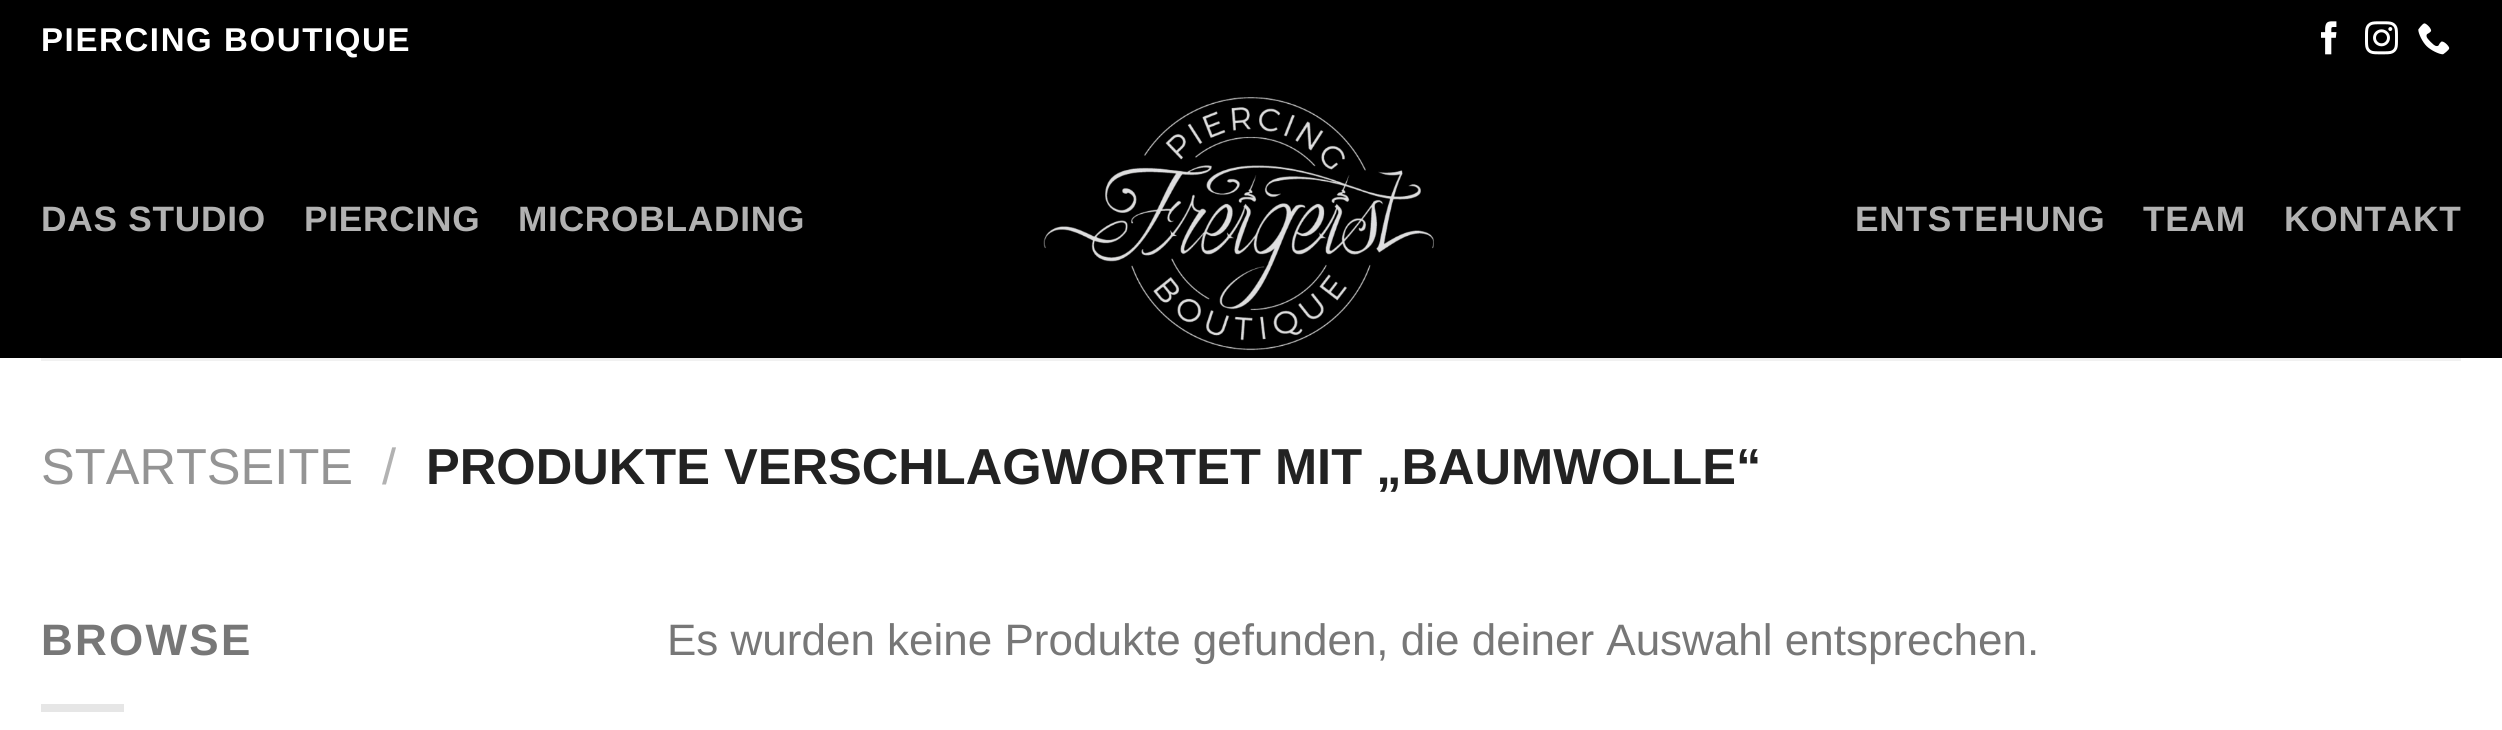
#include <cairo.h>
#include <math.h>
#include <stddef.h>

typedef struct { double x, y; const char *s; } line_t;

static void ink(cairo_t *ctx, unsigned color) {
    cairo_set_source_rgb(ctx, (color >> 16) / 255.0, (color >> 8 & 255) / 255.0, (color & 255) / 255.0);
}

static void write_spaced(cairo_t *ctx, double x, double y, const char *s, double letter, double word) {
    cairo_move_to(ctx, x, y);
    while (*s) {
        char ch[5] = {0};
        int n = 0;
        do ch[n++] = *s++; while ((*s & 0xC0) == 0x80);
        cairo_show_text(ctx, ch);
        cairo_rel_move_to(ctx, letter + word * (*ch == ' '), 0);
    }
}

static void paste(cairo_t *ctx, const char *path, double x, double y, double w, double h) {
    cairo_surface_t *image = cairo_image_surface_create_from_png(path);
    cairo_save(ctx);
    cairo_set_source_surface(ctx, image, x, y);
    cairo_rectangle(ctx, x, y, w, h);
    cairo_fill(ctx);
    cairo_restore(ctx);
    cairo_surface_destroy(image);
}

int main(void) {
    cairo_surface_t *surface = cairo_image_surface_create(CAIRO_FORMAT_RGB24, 2502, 730);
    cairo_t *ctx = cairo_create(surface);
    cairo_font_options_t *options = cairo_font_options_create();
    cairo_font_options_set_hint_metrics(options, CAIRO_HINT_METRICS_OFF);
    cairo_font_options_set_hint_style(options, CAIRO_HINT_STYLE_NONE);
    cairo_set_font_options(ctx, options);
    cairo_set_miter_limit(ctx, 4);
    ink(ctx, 0xFFFFFF);
    cairo_paint(ctx);
    ink(ctx, 0x000000);
    cairo_rectangle(ctx, 0, 0, 2502, 358);
    cairo_fill(ctx);
    cairo_select_font_face(ctx, "Liberation Sans", CAIRO_FONT_SLANT_NORMAL, CAIRO_FONT_WEIGHT_BOLD);
    cairo_set_font_size(ctx, 33);
    ink(ctx, 0xFFFFFF);
    write_spaced(ctx, 41, 51, "PIERCING BOUTIQUE", 1.6, 0);
    paste(ctx, "media/1.png", 2321, 21, 16, 34);
    paste(ctx, "media/2.png", 2365, 21, 33, 34);
    paste(ctx, "media/3.png", 2418, 23, 32, 32);
    cairo_set_font_size(ctx, 35.25);
    ink(ctx, 0xB2B2B2);
    {
        static const line_t items[] = {
            {41, 231, "DAS STUDIO"},
            {304, 231, "PIERCING"},
            {518, 231, "MICROBLADING"},
        };
        for (size_t i = 0; i < sizeof items / sizeof *items; i++) {
            write_spaced(ctx, items[i].x, items[i].y, items[i].s, 0.75, 0);
        }
    }
    paste(ctx, "media/4.png", 1043, 97, 391, 254);
    {
        static const line_t items[] = {
            {1855, 231, "ENTSTEHUNG"},
            {2143, 231, "TEAM"},
            {2284, 231, "KONTAKT"},
        };
        for (size_t i = 0; i < sizeof items / sizeof *items; i++) {
            write_spaced(ctx, items[i].x, items[i].y, items[i].s, 0.75, 0);
        }
    }
    ink(ctx, 0xF1F1F1);
    cairo_rectangle(ctx, 41, 358, 2420, 3);
    cairo_fill(ctx);
    cairo_select_font_face(ctx, "Liberation Sans", CAIRO_FONT_SLANT_NORMAL, CAIRO_FONT_WEIGHT_NORMAL);
    cairo_set_font_size(ctx, 50.6);
    ink(ctx, 0x949494);
    cairo_move_to(ctx, 41, 484);
    cairo_show_text(ctx, "STARTSEITE");
    ink(ctx, 0xB2B2B2);
    cairo_move_to(ctx, 382, 484);
    cairo_show_text(ctx, "/");
    cairo_select_font_face(ctx, "Liberation Sans", CAIRO_FONT_SLANT_NORMAL, CAIRO_FONT_WEIGHT_BOLD);
    ink(ctx, 0x222222);
    cairo_move_to(ctx, 426, 484);
    cairo_show_text(ctx, "PRODUKTE VERSCHLAGWORTET MIT „BAUMWOLLE“");
    cairo_set_font_size(ctx, 44);
    ink(ctx, 0x777777);
    write_spaced(ctx, 41, 655, "BROWSE", 2.25, 0);
    ink(ctx, 0xE6E6E6);
    cairo_rectangle(ctx, 41, 704, 83, 8);
    cairo_fill(ctx);
    cairo_select_font_face(ctx, "Liberation Sans", CAIRO_FONT_SLANT_NORMAL, CAIRO_FONT_WEIGHT_NORMAL);
    ink(ctx, 0x777777);
    cairo_move_to(ctx, 667, 655);
    cairo_show_text(ctx, "Es wurden keine Produkte gefunden, die deiner Auswahl entsprechen.");
    cairo_surface_write_to_png(surface, "image.png");
    cairo_font_options_destroy(options);
    cairo_destroy(ctx);
    cairo_surface_destroy(surface);
    return 0;
}
